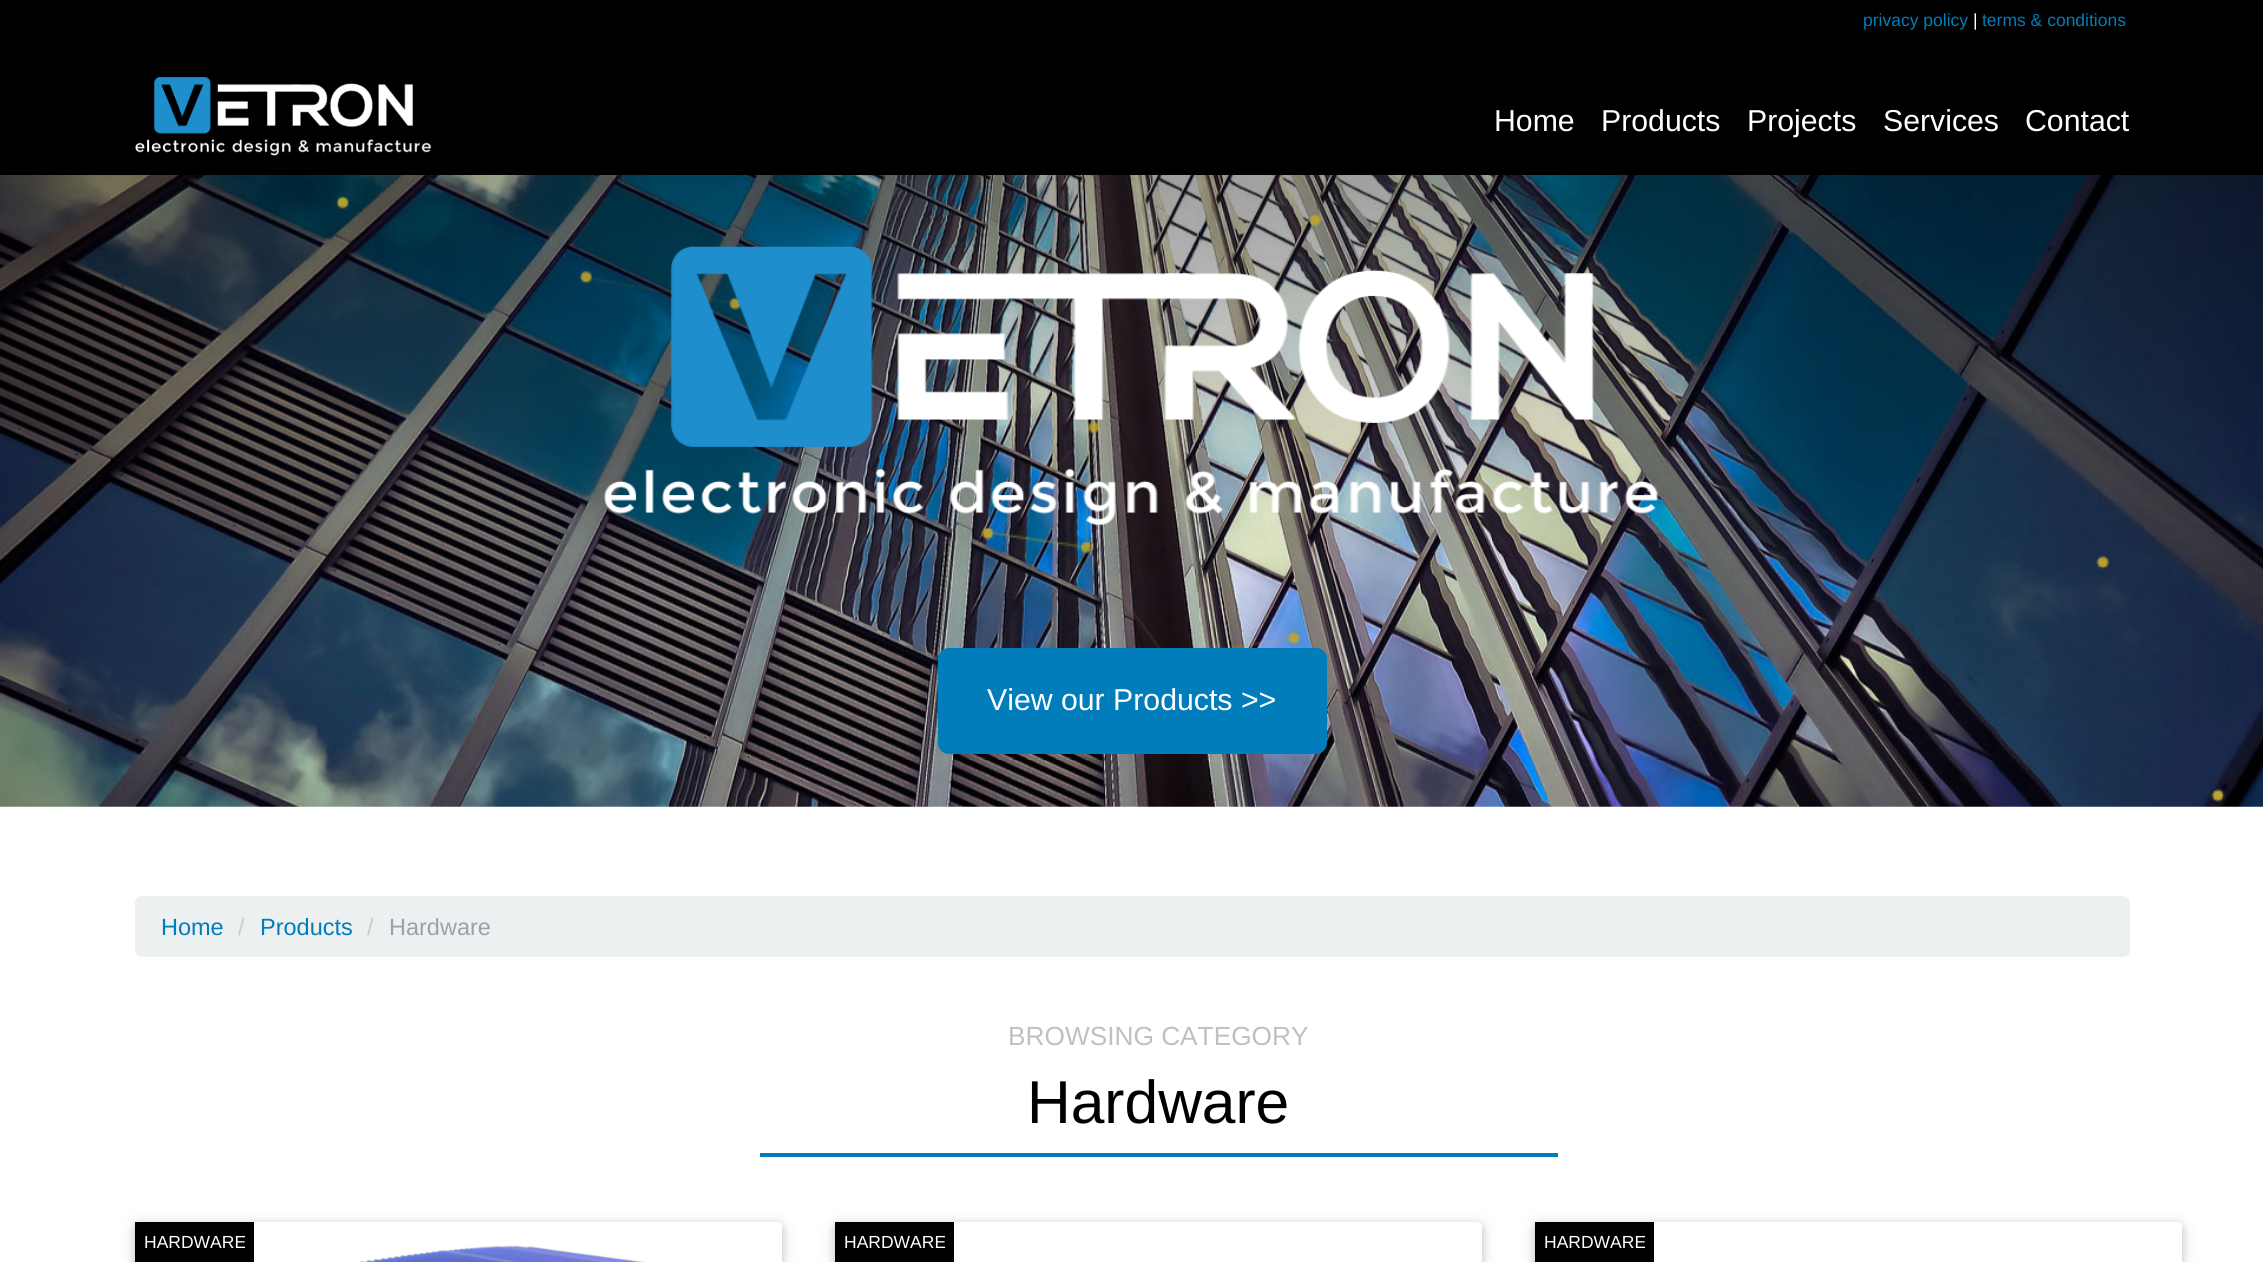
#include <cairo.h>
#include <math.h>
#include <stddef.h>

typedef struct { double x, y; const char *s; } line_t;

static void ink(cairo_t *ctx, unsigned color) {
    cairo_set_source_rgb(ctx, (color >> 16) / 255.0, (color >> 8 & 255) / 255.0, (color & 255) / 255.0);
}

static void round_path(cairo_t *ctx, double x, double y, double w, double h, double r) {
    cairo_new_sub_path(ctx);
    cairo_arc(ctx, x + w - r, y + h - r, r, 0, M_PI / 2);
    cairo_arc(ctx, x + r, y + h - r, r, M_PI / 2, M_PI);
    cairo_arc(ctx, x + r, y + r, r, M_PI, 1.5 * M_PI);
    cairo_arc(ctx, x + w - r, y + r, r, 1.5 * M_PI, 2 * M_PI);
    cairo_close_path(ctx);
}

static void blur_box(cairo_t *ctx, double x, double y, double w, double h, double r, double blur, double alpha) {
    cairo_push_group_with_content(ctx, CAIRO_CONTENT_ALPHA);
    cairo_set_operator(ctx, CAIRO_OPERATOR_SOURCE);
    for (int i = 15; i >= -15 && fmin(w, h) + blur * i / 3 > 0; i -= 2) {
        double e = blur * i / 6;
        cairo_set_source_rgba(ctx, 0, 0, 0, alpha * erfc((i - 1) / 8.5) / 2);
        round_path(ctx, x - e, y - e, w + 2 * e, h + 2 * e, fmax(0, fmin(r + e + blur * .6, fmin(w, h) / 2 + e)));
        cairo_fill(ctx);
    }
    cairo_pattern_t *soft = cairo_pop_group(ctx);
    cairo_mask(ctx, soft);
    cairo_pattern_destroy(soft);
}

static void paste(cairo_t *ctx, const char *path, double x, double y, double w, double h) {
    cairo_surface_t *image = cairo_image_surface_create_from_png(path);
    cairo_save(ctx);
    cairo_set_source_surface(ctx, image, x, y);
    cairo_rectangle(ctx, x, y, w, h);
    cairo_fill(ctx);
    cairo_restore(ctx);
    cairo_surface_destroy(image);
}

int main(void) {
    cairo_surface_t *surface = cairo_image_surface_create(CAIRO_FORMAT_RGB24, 2263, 1262);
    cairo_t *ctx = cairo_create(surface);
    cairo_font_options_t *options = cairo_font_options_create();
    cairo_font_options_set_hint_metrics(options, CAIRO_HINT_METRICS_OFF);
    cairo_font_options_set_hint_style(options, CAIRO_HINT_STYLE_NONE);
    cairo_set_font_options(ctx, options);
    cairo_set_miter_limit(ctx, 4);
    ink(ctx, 0xFFFFFF);
    cairo_paint(ctx);
    ink(ctx, 0x000000);
    cairo_rectangle(ctx, 0, 0, 2263, 175);
    cairo_fill(ctx);
    cairo_select_font_face(ctx, "Liberation Sans", CAIRO_FONT_SLANT_NORMAL, CAIRO_FONT_WEIGHT_NORMAL);
    cairo_set_font_size(ctx, 17.5);
    ink(ctx, 0x007DBA);
    cairo_move_to(ctx, 1863, 26);
    cairo_show_text(ctx, "privacy policy");
    ink(ctx, 0xFFFFFF);
    cairo_move_to(ctx, 1973, 26);
    cairo_show_text(ctx, "|");
    ink(ctx, 0x007DBA);
    cairo_move_to(ctx, 1982, 26);
    cairo_show_text(ctx, "terms & conditions");
    paste(ctx, "media/1.png", 135, 77, 297, 79);
    cairo_set_font_size(ctx, 30.25);
    ink(ctx, 0xFFFFFF);
    {
        static const line_t items[] = {
            {1494, 131, "Home"},
            {1601, 131, "Products"},
            {1747, 131, "Projects"},
            {1883, 131, "Services"},
            {2025, 131, "Contact"},
        };
        for (size_t i = 0; i < sizeof items / sizeof *items; i++) {
            cairo_move_to(ctx, items[i].x, items[i].y);
            cairo_show_text(ctx, items[i].s);
        }
    }
    paste(ctx, "media/2.png", 0, 175, 2263, 632);
    paste(ctx, "media/3.png", 336, 195, 1889, 607);
    paste(ctx, "media/4.png", 604, 246, 1054, 280);
    ink(ctx, 0x007DBA);
    round_path(ctx, 939, 649, 387, 104, 10);
    cairo_fill_preserve(ctx);
    cairo_stroke(ctx);
    ink(ctx, 0xFFFFFF);
    cairo_move_to(ctx, 987, 710);
    cairo_show_text(ctx, "View our Products >>");
    ink(ctx, 0xECF0F1);
    round_path(ctx, 135, 896, 1995, 61, 7);
    cairo_fill(ctx);
    cairo_set_font_size(ctx, 23.5);
    ink(ctx, 0x007DBA);
    cairo_move_to(ctx, 161, 935);
    cairo_show_text(ctx, "Home");
    ink(ctx, 0xCCCCCC);
    cairo_move_to(ctx, 238, 935);
    cairo_show_text(ctx, "/");
    ink(ctx, 0x007DBA);
    cairo_move_to(ctx, 260, 935);
    cairo_show_text(ctx, "Products");
    ink(ctx, 0xCCCCCC);
    cairo_move_to(ctx, 367, 935);
    cairo_show_text(ctx, "/");
    ink(ctx, 0x95A5A6);
    cairo_move_to(ctx, 389, 935);
    cairo_show_text(ctx, "Hardware");
    cairo_set_font_size(ctx, 26.25);
    ink(ctx, 0xC0C0C0);
    cairo_move_to(ctx, 1008, 1045);
    cairo_show_text(ctx, "BROWSING CATEGORY");
    cairo_set_font_size(ctx, 60.5);
    ink(ctx, 0x000000);
    cairo_move_to(ctx, 1027, 1123);
    cairo_show_text(ctx, "Hardware");
    ink(ctx, 0x007DBA);
    cairo_rectangle(ctx, 760, 1153, 798, 4);
    cairo_fill(ctx);
    cairo_save(ctx);
    cairo_set_fill_rule(ctx, CAIRO_FILL_RULE_EVEN_ODD);
    cairo_new_path(ctx);
    cairo_move_to(ctx, 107, 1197);
    cairo_line_to(ctx, 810, 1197);
    cairo_line_to(ctx, 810, 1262);
    cairo_line_to(ctx, 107, 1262);
    cairo_close_path(ctx);
    cairo_move_to(ctx, 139, 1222);
    cairo_line_to(ctx, 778, 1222);
    cairo_curve_to(ctx, 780, 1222, 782, 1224, 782, 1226);
    cairo_line_to(ctx, 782, 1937);
    cairo_curve_to(ctx, 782, 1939, 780, 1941, 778, 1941);
    cairo_line_to(ctx, 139, 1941);
    cairo_curve_to(ctx, 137, 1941, 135, 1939, 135, 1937);
    cairo_line_to(ctx, 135, 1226);
    cairo_curve_to(ctx, 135, 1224, 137, 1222, 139, 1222);
    cairo_close_path(ctx);
    cairo_clip(ctx);
    ink(ctx, 0x000000);
    blur_box(ctx, 135, 1225, 647, 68, 4, 9, 0.12);
    cairo_restore(ctx);
    cairo_save(ctx);
    cairo_set_fill_rule(ctx, CAIRO_FILL_RULE_EVEN_ODD);
    cairo_new_path(ctx);
    cairo_move_to(ctx, 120, 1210);
    cairo_line_to(ctx, 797, 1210);
    cairo_line_to(ctx, 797, 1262);
    cairo_line_to(ctx, 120, 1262);
    cairo_close_path(ctx);
    cairo_move_to(ctx, 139, 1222);
    cairo_line_to(ctx, 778, 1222);
    cairo_curve_to(ctx, 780, 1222, 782, 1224, 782, 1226);
    cairo_line_to(ctx, 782, 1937);
    cairo_curve_to(ctx, 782, 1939, 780, 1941, 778, 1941);
    cairo_line_to(ctx, 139, 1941);
    cairo_curve_to(ctx, 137, 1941, 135, 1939, 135, 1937);
    cairo_line_to(ctx, 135, 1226);
    cairo_curve_to(ctx, 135, 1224, 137, 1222, 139, 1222);
    cairo_close_path(ctx);
    cairo_clip(ctx);
    ink(ctx, 0x000000);
    blur_box(ctx, 135, 1225, 647, 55, 4, 4.5, 0.16);
    cairo_restore(ctx);
    ink(ctx, 0x000000);
    cairo_rectangle(ctx, 135, 1222, 119, 40);
    cairo_fill(ctx);
    cairo_set_font_size(ctx, 17.5);
    ink(ctx, 0xFFFFFF);
    cairo_move_to(ctx, 144, 1248);
    cairo_show_text(ctx, "HARDWARE");
    paste(ctx, "media/5.png", 359, 1245, 287, 17);
    cairo_save(ctx);
    cairo_set_fill_rule(ctx, CAIRO_FILL_RULE_EVEN_ODD);
    cairo_new_path(ctx);
    cairo_move_to(ctx, 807, 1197);
    cairo_line_to(ctx, 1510, 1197);
    cairo_line_to(ctx, 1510, 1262);
    cairo_line_to(ctx, 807, 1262);
    cairo_close_path(ctx);
    cairo_move_to(ctx, 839, 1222);
    cairo_line_to(ctx, 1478, 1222);
    cairo_curve_to(ctx, 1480, 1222, 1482, 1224, 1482, 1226);
    cairo_line_to(ctx, 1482, 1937);
    cairo_curve_to(ctx, 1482, 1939, 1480, 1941, 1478, 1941);
    cairo_line_to(ctx, 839, 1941);
    cairo_curve_to(ctx, 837, 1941, 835, 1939, 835, 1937);
    cairo_line_to(ctx, 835, 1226);
    cairo_curve_to(ctx, 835, 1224, 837, 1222, 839, 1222);
    cairo_close_path(ctx);
    cairo_clip(ctx);
    ink(ctx, 0x000000);
    blur_box(ctx, 835, 1225, 647, 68, 4, 9, 0.12);
    cairo_restore(ctx);
    cairo_save(ctx);
    cairo_set_fill_rule(ctx, CAIRO_FILL_RULE_EVEN_ODD);
    cairo_new_path(ctx);
    cairo_move_to(ctx, 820, 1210);
    cairo_line_to(ctx, 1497, 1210);
    cairo_line_to(ctx, 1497, 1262);
    cairo_line_to(ctx, 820, 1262);
    cairo_close_path(ctx);
    cairo_move_to(ctx, 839, 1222);
    cairo_line_to(ctx, 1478, 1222);
    cairo_curve_to(ctx, 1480, 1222, 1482, 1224, 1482, 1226);
    cairo_line_to(ctx, 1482, 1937);
    cairo_curve_to(ctx, 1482, 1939, 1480, 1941, 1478, 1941);
    cairo_line_to(ctx, 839, 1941);
    cairo_curve_to(ctx, 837, 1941, 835, 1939, 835, 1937);
    cairo_line_to(ctx, 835, 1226);
    cairo_curve_to(ctx, 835, 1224, 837, 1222, 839, 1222);
    cairo_close_path(ctx);
    cairo_clip(ctx);
    ink(ctx, 0x000000);
    blur_box(ctx, 835, 1225, 647, 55, 4, 4.5, 0.16);
    cairo_restore(ctx);
    ink(ctx, 0x000000);
    cairo_rectangle(ctx, 835, 1222, 119, 40);
    cairo_fill(ctx);
    ink(ctx, 0xFFFFFF);
    cairo_move_to(ctx, 844, 1248);
    cairo_show_text(ctx, "HARDWARE");
    cairo_save(ctx);
    cairo_set_fill_rule(ctx, CAIRO_FILL_RULE_EVEN_ODD);
    cairo_new_path(ctx);
    cairo_move_to(ctx, 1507, 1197);
    cairo_line_to(ctx, 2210, 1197);
    cairo_line_to(ctx, 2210, 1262);
    cairo_line_to(ctx, 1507, 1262);
    cairo_close_path(ctx);
    cairo_move_to(ctx, 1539, 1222);
    cairo_line_to(ctx, 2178, 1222);
    cairo_curve_to(ctx, 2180, 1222, 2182, 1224, 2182, 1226);
    cairo_line_to(ctx, 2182, 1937);
    cairo_curve_to(ctx, 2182, 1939, 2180, 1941, 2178, 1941);
    cairo_line_to(ctx, 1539, 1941);
    cairo_curve_to(ctx, 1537, 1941, 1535, 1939, 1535, 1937);
    cairo_line_to(ctx, 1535, 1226);
    cairo_curve_to(ctx, 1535, 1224, 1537, 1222, 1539, 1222);
    cairo_close_path(ctx);
    cairo_clip(ctx);
    ink(ctx, 0x000000);
    blur_box(ctx, 1535, 1225, 647, 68, 4, 9, 0.12);
    cairo_restore(ctx);
    cairo_save(ctx);
    cairo_set_fill_rule(ctx, CAIRO_FILL_RULE_EVEN_ODD);
    cairo_new_path(ctx);
    cairo_move_to(ctx, 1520, 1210);
    cairo_line_to(ctx, 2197, 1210);
    cairo_line_to(ctx, 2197, 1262);
    cairo_line_to(ctx, 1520, 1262);
    cairo_close_path(ctx);
    cairo_move_to(ctx, 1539, 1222);
    cairo_line_to(ctx, 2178, 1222);
    cairo_curve_to(ctx, 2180, 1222, 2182, 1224, 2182, 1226);
    cairo_line_to(ctx, 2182, 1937);
    cairo_curve_to(ctx, 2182, 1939, 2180, 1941, 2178, 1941);
    cairo_line_to(ctx, 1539, 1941);
    cairo_curve_to(ctx, 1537, 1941, 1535, 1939, 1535, 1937);
    cairo_line_to(ctx, 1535, 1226);
    cairo_curve_to(ctx, 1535, 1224, 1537, 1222, 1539, 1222);
    cairo_close_path(ctx);
    cairo_clip(ctx);
    ink(ctx, 0x000000);
    blur_box(ctx, 1535, 1225, 647, 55, 4, 4.5, 0.16);
    cairo_restore(ctx);
    ink(ctx, 0x000000);
    cairo_rectangle(ctx, 1535, 1222, 119, 40);
    cairo_fill(ctx);
    ink(ctx, 0xFFFFFF);
    cairo_move_to(ctx, 1544, 1248);
    cairo_show_text(ctx, "HARDWARE");
    cairo_surface_write_to_png(surface, "image.png");
    cairo_font_options_destroy(options);
    cairo_destroy(ctx);
    cairo_surface_destroy(surface);
    return 0;
}
